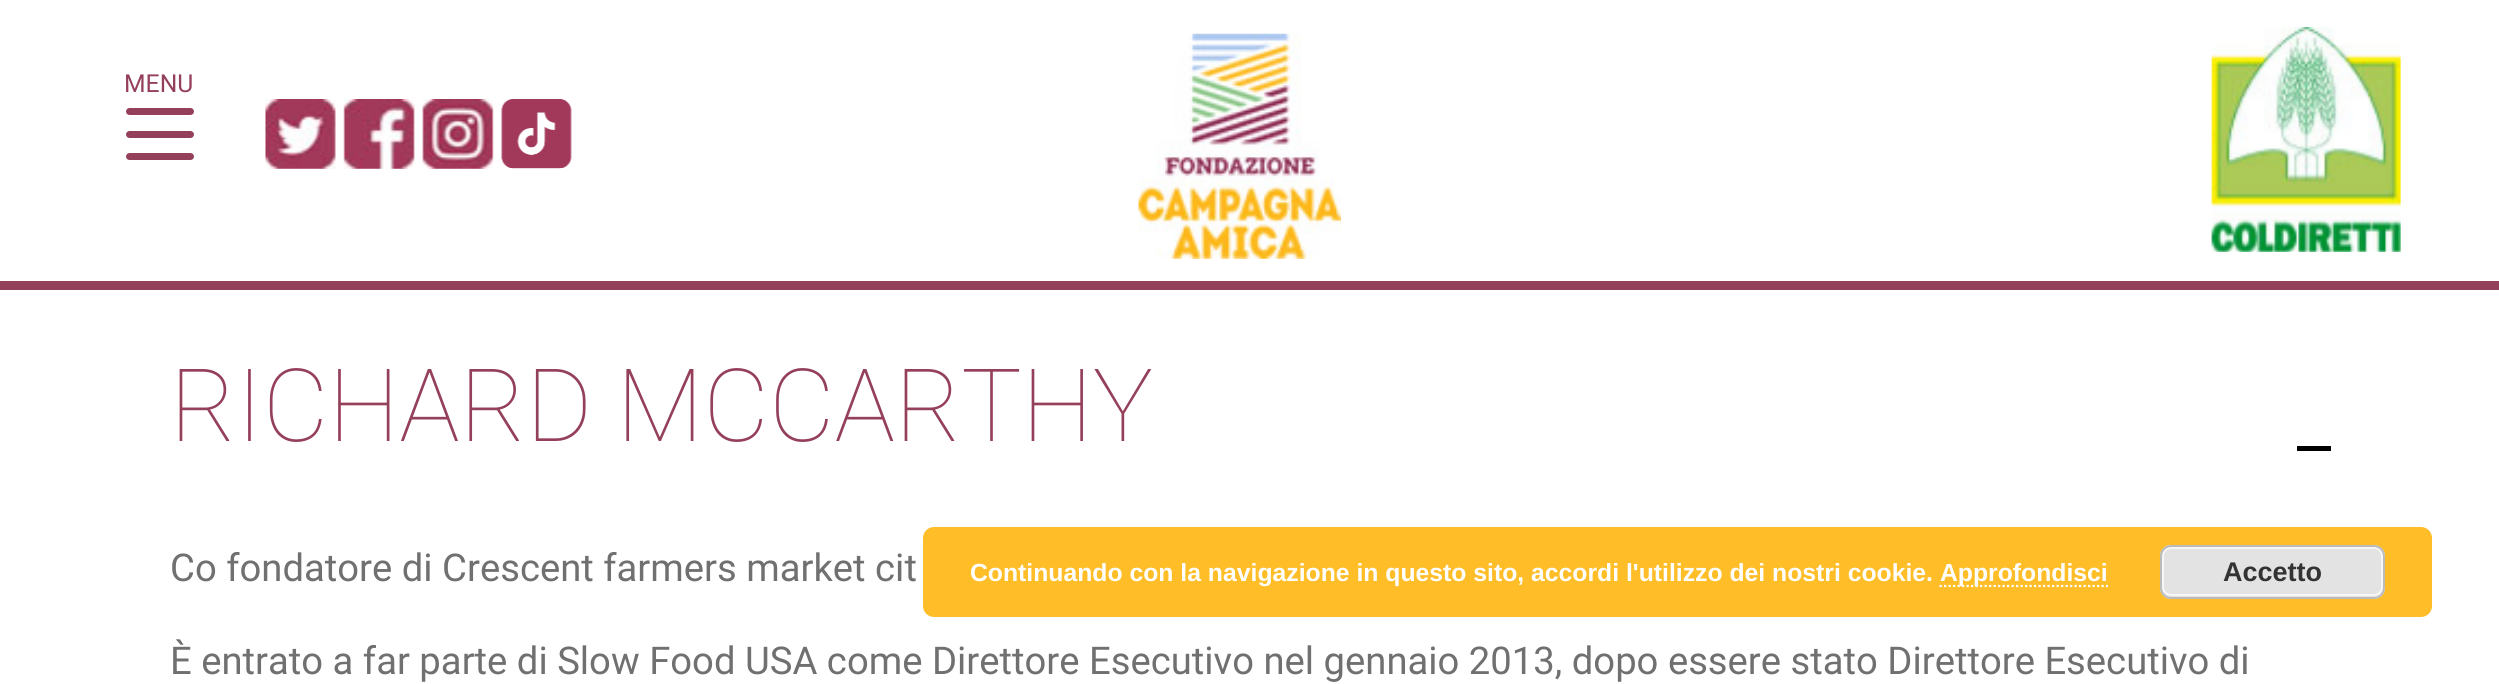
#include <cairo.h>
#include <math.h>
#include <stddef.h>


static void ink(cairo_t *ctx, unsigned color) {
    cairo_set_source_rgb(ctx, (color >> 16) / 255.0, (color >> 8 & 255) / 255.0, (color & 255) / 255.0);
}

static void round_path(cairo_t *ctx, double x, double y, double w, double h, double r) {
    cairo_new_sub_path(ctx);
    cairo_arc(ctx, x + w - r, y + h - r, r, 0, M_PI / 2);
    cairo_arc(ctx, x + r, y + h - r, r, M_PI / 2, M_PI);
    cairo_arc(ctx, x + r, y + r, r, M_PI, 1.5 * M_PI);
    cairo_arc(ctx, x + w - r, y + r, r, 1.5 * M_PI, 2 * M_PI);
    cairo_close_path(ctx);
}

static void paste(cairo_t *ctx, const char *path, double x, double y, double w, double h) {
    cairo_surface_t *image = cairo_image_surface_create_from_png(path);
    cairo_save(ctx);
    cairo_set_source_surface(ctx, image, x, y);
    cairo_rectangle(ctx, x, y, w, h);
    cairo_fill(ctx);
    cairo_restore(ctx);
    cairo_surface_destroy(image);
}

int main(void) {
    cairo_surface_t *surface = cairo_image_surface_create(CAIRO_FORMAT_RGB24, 2499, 684);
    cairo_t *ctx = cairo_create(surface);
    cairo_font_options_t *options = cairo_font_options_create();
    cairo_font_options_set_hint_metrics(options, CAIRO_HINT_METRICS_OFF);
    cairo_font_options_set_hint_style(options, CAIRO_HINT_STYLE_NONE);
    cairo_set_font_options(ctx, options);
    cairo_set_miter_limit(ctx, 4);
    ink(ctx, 0xFFFFFF);
    cairo_paint(ctx);
    ink(ctx, 0x95405A);
    cairo_set_fill_rule(ctx, CAIRO_FILL_RULE_EVEN_ODD);
    cairo_new_path(ctx);
    cairo_move_to(ctx, -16, -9);
    cairo_line_to(ctx, -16, 290);
    cairo_line_to(ctx, 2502, 290);
    cairo_line_to(ctx, 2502, -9);
    cairo_close_path(ctx);
    cairo_move_to(ctx, 0, 0);
    cairo_line_to(ctx, 0, 281);
    cairo_line_to(ctx, 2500, 281);
    cairo_line_to(ctx, 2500, 0);
    cairo_close_path(ctx);
    cairo_fill(ctx);
    cairo_select_font_face(ctx, "Roboto", CAIRO_FONT_SLANT_NORMAL, CAIRO_FONT_WEIGHT_NORMAL);
    cairo_set_font_size(ctx, 24.75);
    cairo_move_to(ctx, 124, 92);
    cairo_show_text(ctx, "MENU");
    paste(ctx, "media/1.png", 1138, 33, 203, 226);
    paste(ctx, "media/2.png", 2211, 27, 190, 225);
    round_path(ctx, 126, 108, 68, 7, 3.5);
    cairo_fill(ctx);
    round_path(ctx, 126, 131, 68, 7, 3.5);
    cairo_fill(ctx);
    round_path(ctx, 126, 153, 68, 7, 3.5);
    cairo_fill(ctx);
    paste(ctx, "media/3.png", 265, 99, 71, 70);
    paste(ctx, "media/4.png", 343, 99, 72, 70);
    paste(ctx, "media/5.png", 422, 99, 72, 70);
    paste(ctx, "media/6.png", 501, 99, 71, 70);
    ink(ctx, 0x000000);
    cairo_rectangle(ctx, 2297, 446, 34, 5);
    cairo_fill(ctx);
    cairo_select_font_face(ctx, "Roboto Thin", CAIRO_FONT_SLANT_NORMAL, CAIRO_FONT_WEIGHT_NORMAL);
    cairo_set_font_size(ctx, 101.25);
    ink(ctx, 0x95405A);
    cairo_move_to(ctx, 170, 441);
    cairo_show_text(ctx, "RICHARD MCCARTHY");
    cairo_select_font_face(ctx, "Roboto", CAIRO_FONT_SLANT_NORMAL, CAIRO_FONT_WEIGHT_NORMAL);
    cairo_set_font_size(ctx, 38.25);
    ink(ctx, 0x707070);
    cairo_move_to(ctx, 170, 581);
    cairo_show_text(ctx, "Co fondatore di Crescent farmers market cit");
    cairo_move_to(ctx, 170, 674);
    cairo_show_text(ctx, "È entrato a far parte di Slow Food USA come Direttore Esecutivo nel gennaio 2013, dopo essere stato Direttore Esecutivo di");
    cairo_set_source_rgba(ctx, 1, 0.698, 0.008, 0.85);
    round_path(ctx, 923, 527, 1509, 90, 11);
    cairo_fill(ctx);
    cairo_select_font_face(ctx, "Liberation Sans", CAIRO_FONT_SLANT_NORMAL, CAIRO_FONT_WEIGHT_BOLD);
    cairo_set_font_size(ctx, 24.75);
    ink(ctx, 0xFFFFFF);
    cairo_move_to(ctx, 970, 581);
    cairo_show_text(ctx, "Continuando con la navigazione in questo sito, accordi l'utilizzo dei nostri cookie.");
    cairo_new_path(ctx);
    cairo_move_to(ctx, 1939.5, 586);
    cairo_line_to(ctx, 2108, 586);
    cairo_set_line_width(ctx, 2.2);
    cairo_set_dash(ctx, (double[]){2.25, 2.25}, 2, 0);
    cairo_stroke(ctx);
    cairo_move_to(ctx, 1940, 581);
    cairo_show_text(ctx, "Approfondisci");
    ink(ctx, 0xE3E3E3);
    round_path(ctx, 2160, 545, 225, 54, 11);
    cairo_fill(ctx);
    round_path(ctx, 2163, 548, 219, 47, 8);
    ink(ctx, 0xF6F6F6);
    cairo_set_line_width(ctx, 2);
    cairo_set_dash(ctx, NULL, 0, 0);
    cairo_stroke(ctx);
    round_path(ctx, 2161, 546, 223, 52, 10);
    ink(ctx, 0xBBBBBB);
    cairo_stroke(ctx);
    cairo_set_font_size(ctx, 27);
    ink(ctx, 0x333333);
    cairo_move_to(ctx, 2223, 581);
    cairo_show_text(ctx, "Accetto");
    cairo_surface_write_to_png(surface, "image.png");
    cairo_font_options_destroy(options);
    cairo_destroy(ctx);
    cairo_surface_destroy(surface);
    return 0;
}
